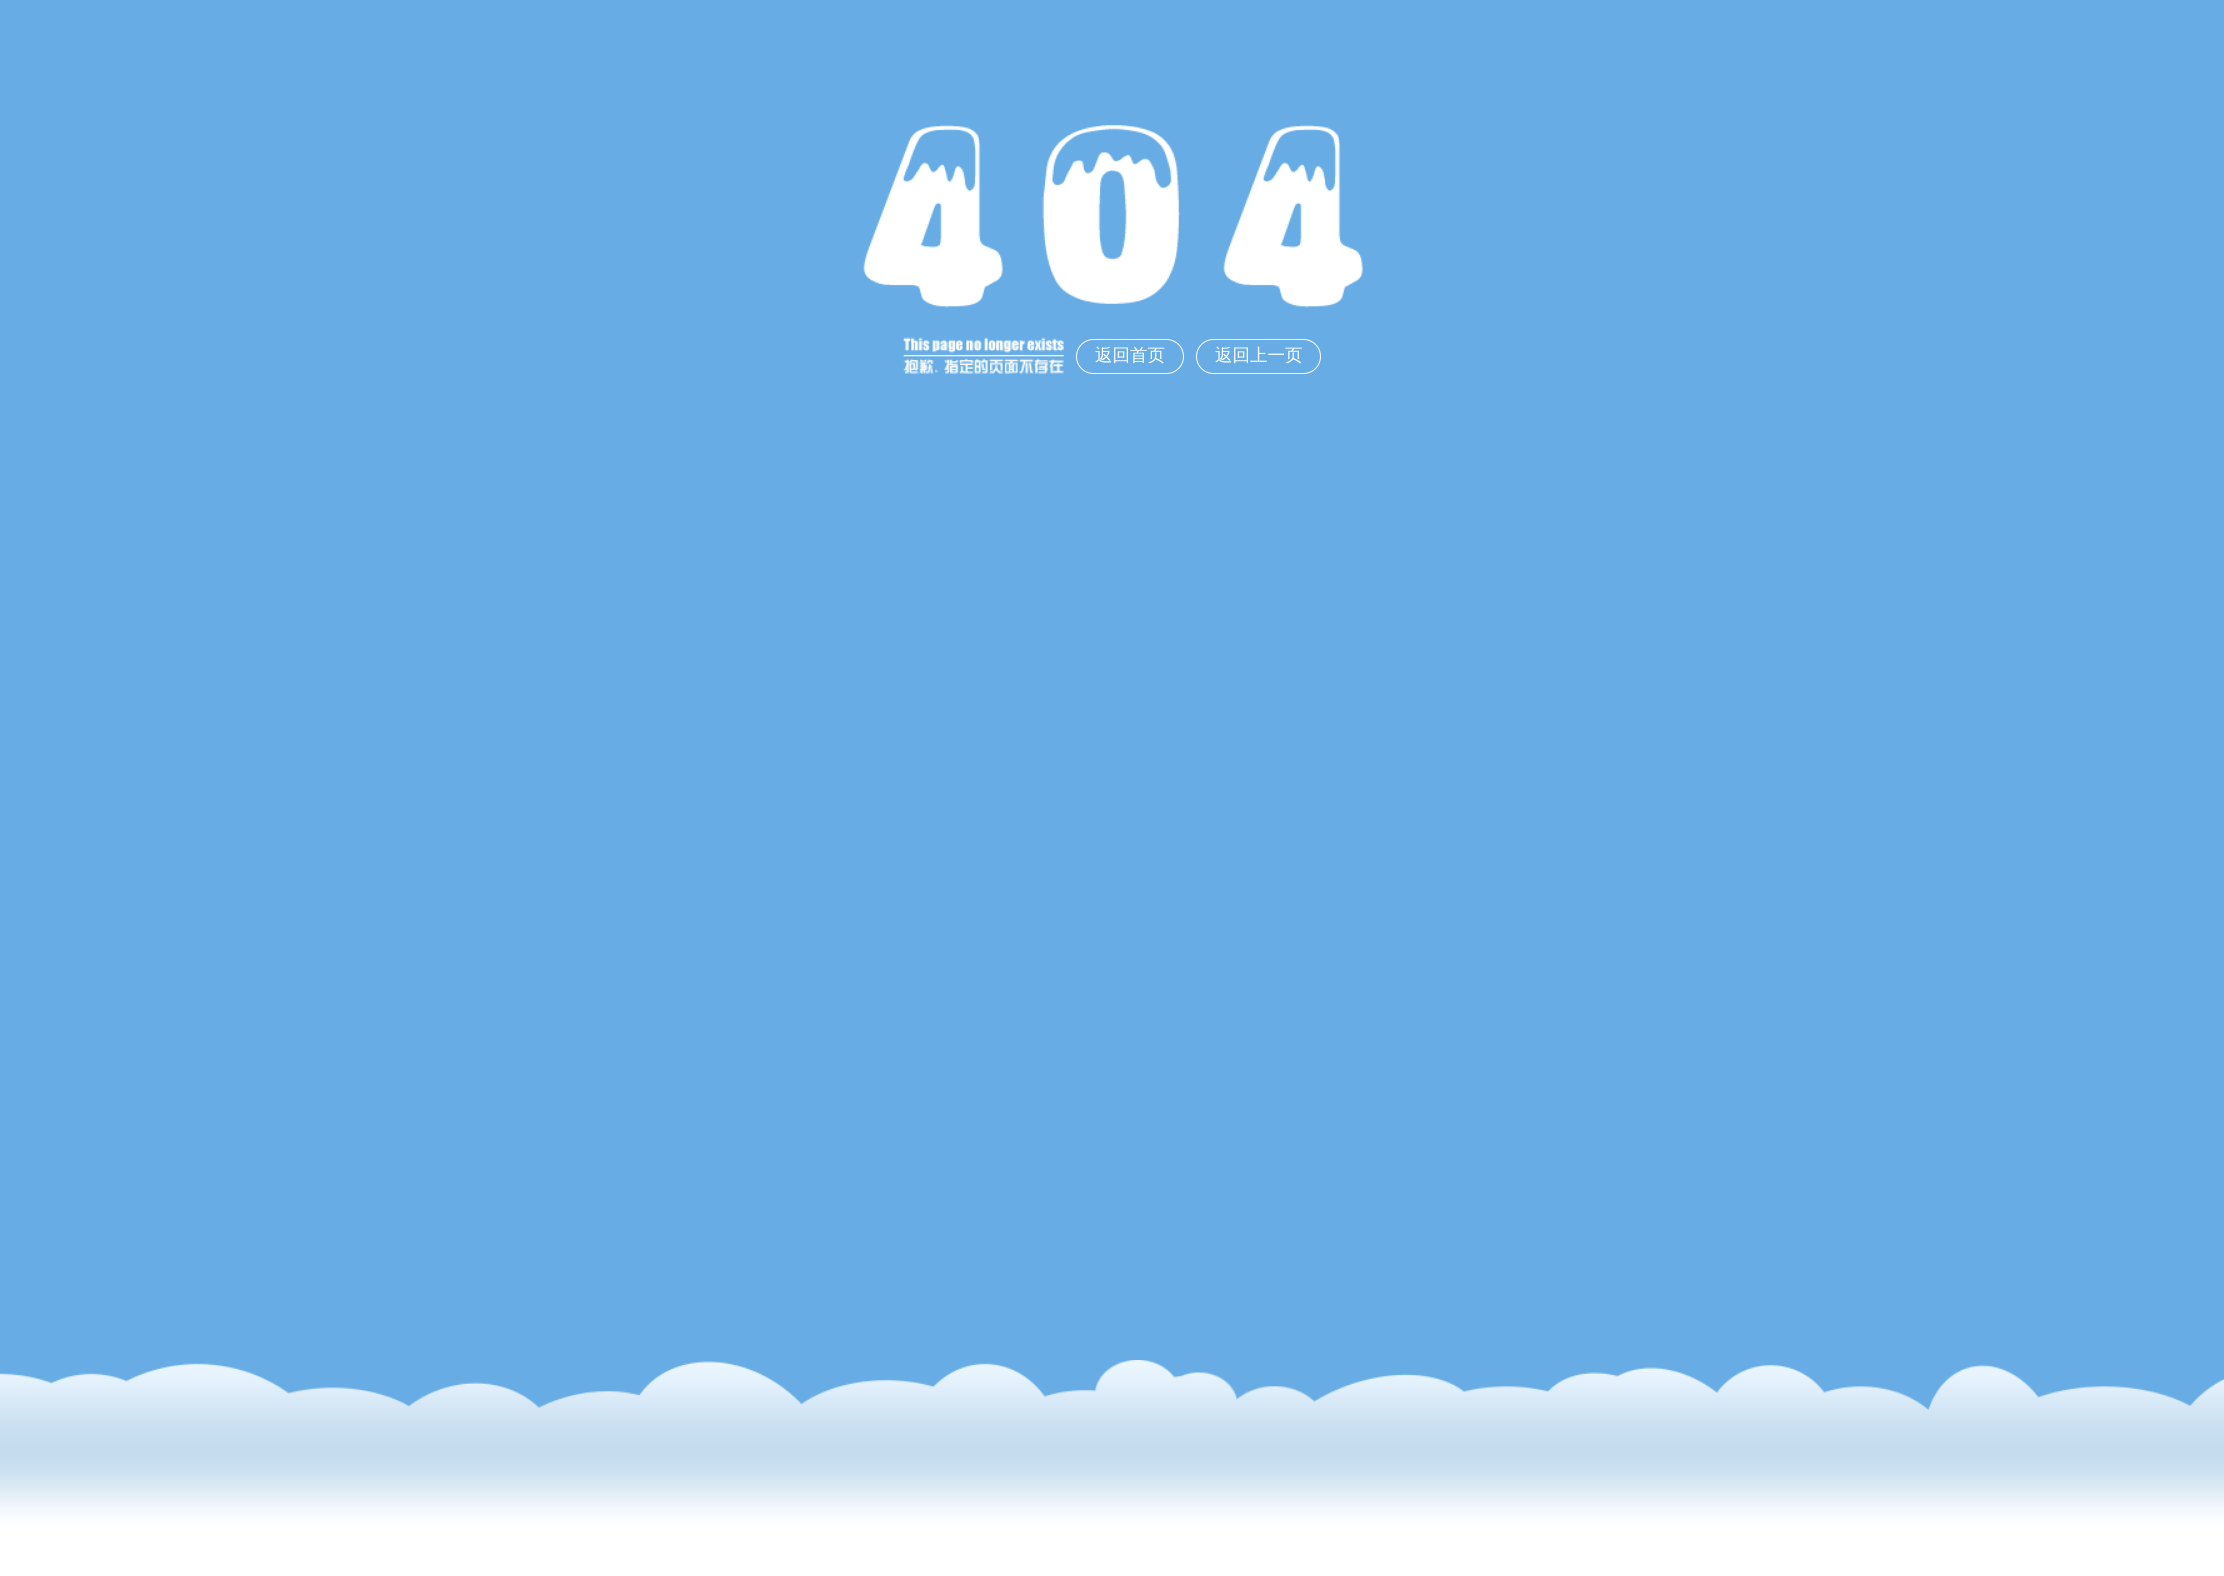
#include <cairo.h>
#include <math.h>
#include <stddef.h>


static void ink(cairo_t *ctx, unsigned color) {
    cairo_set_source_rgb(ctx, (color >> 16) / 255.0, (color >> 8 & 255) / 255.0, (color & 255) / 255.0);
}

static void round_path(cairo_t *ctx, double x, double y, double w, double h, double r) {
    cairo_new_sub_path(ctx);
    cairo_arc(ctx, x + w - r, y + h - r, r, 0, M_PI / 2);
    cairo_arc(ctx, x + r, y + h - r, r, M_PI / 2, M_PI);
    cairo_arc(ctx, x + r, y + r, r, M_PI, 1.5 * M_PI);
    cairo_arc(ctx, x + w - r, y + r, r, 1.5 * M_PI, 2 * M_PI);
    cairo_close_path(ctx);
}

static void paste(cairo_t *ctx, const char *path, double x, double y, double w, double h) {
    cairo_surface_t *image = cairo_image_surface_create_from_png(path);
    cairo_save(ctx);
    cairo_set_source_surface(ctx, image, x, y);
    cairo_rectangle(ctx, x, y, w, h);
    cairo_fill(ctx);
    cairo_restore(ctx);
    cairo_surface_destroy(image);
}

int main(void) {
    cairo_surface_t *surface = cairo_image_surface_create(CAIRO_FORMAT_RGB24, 2224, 1576);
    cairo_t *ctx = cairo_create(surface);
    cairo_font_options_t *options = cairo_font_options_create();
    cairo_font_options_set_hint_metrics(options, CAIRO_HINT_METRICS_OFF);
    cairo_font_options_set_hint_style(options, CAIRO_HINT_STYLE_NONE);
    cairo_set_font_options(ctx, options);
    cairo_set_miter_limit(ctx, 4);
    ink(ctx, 0x67ACE4);
    cairo_paint(ctx);
    paste(ctx, "media/1.png", 863, 125, 500, 183);
    paste(ctx, "media/2.png", 903, 337, 161, 37);
    round_path(ctx, 1076.5, 339.5, 107, 34, 17);
    ink(ctx, 0xFFFFFF);
    cairo_set_line_width(ctx, 1);
    cairo_stroke(ctx);
    cairo_select_font_face(ctx, "WenQuanYi Zen Hei Medium", CAIRO_FONT_SLANT_NORMAL, CAIRO_FONT_WEIGHT_NORMAL);
    cairo_set_font_size(ctx, 17.5);
    cairo_move_to(ctx, 1095, 361);
    cairo_show_text(ctx, "返回首页");
    round_path(ctx, 1196.5, 339.5, 124, 34, 17);
    cairo_stroke(ctx);
    cairo_move_to(ctx, 1215, 361);
    cairo_show_text(ctx, "返回上一页");
    paste(ctx, "media/3.png", 0, 1360, 2224, 216);
    cairo_surface_write_to_png(surface, "image.png");
    cairo_font_options_destroy(options);
    cairo_destroy(ctx);
    cairo_surface_destroy(surface);
    return 0;
}
